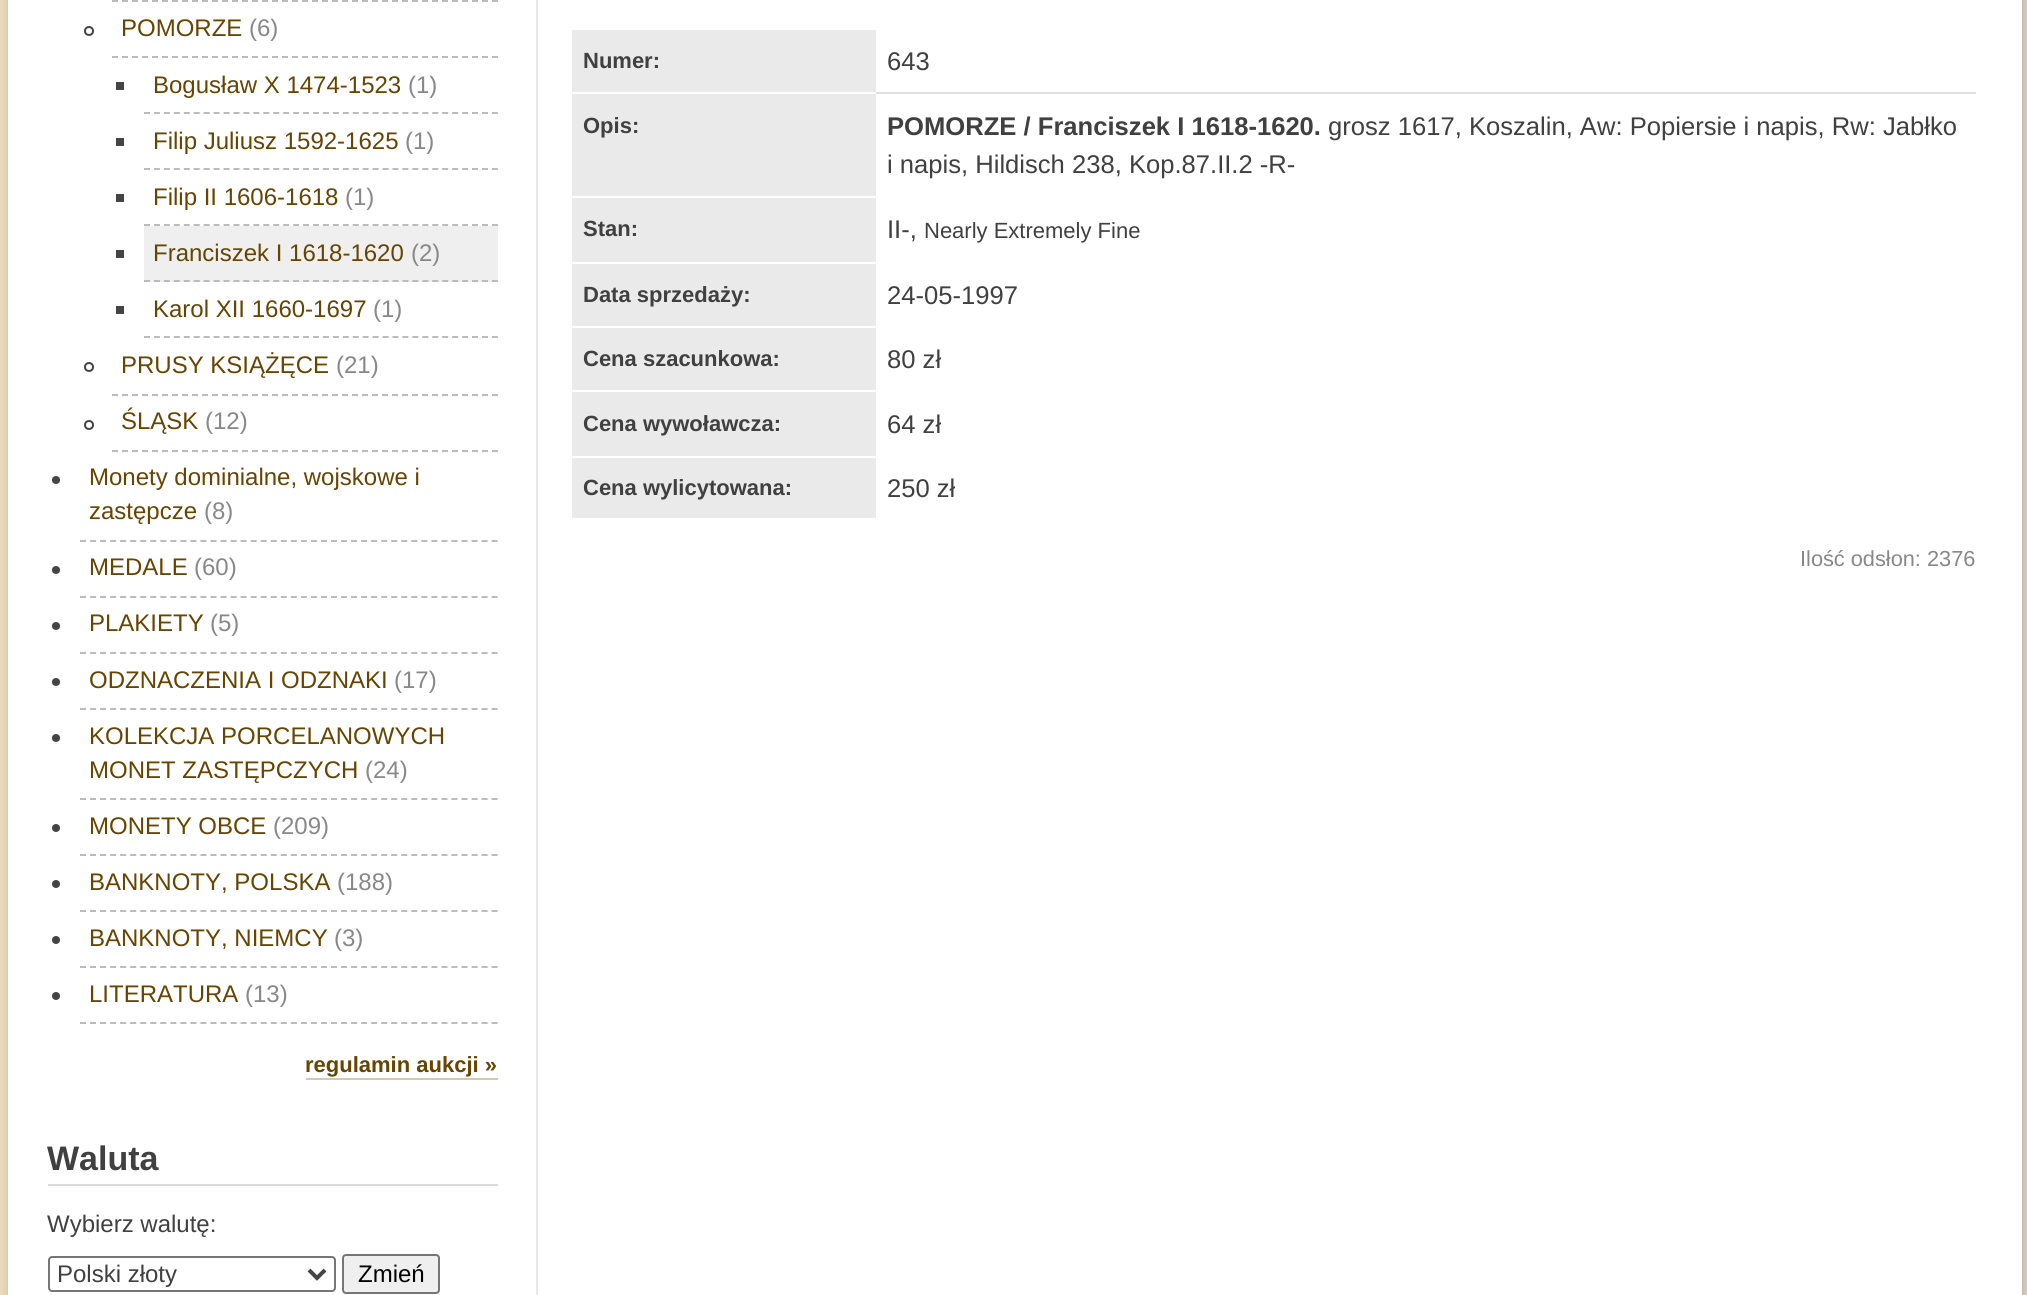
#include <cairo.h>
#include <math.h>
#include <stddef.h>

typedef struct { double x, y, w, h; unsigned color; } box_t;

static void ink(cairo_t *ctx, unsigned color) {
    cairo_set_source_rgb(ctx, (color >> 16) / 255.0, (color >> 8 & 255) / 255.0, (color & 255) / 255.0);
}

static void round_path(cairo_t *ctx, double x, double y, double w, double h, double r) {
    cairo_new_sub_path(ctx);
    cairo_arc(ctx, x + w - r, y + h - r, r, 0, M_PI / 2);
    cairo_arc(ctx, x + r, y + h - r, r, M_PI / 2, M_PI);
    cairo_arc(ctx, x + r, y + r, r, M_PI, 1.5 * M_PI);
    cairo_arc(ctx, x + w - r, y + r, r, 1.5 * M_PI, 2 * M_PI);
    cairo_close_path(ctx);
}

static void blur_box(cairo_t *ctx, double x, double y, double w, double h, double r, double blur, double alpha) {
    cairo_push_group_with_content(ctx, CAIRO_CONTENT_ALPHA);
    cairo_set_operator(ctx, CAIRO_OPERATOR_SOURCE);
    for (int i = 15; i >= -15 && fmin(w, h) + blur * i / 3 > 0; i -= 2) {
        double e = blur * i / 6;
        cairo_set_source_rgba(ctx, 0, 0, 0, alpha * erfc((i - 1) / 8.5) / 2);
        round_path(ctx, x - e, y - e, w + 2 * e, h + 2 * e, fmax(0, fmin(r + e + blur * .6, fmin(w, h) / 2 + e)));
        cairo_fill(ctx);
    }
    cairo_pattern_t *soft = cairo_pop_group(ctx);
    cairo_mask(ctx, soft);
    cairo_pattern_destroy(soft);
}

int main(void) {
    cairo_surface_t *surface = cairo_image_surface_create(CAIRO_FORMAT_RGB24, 2027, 1295);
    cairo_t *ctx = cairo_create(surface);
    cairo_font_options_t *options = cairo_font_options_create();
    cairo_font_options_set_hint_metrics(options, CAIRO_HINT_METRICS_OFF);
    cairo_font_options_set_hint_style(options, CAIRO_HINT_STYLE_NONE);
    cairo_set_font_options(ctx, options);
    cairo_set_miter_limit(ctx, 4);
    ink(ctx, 0xEEDDBB);
    cairo_paint(ctx);
    ink(ctx, 0xAAAAAA);
    blur_box(ctx, 10, -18, 2014, 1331, 0, 6, 1);
    ink(ctx, 0xFFFFFF);
    cairo_rectangle(ctx, 8, 0, 2014, 1295);
    cairo_fill(ctx);
    ink(ctx, 0xE8E8E8);
    cairo_rectangle(ctx, 536, 0, 2, 1295);
    cairo_fill(ctx);
    cairo_new_path(ctx);
    cairo_move_to(ctx, 112, 1);
    cairo_line_to(ctx, 498, 1);
    ink(ctx, 0xBBBBBB);
    cairo_set_dash(ctx, (double[]){6, 4}, 2, 0);
    cairo_stroke(ctx);
    cairo_arc(ctx, 89, 31, 4, 0, 2 * M_PI);
    ink(ctx, 0x444444);
    cairo_set_dash(ctx, NULL, 0, 0);
    cairo_stroke(ctx);
    cairo_new_path(ctx);
    cairo_move_to(ctx, 112, 57);
    cairo_line_to(ctx, 498, 57);
    ink(ctx, 0xBBBBBB);
    cairo_set_dash(ctx, (double[]){6, 4}, 2, 0);
    cairo_stroke(ctx);
    cairo_select_font_face(ctx, "Liberation Sans", CAIRO_FONT_SLANT_NORMAL, CAIRO_FONT_WEIGHT_NORMAL);
    cairo_set_font_size(ctx, 24);
    ink(ctx, 0x674400);
    cairo_move_to(ctx, 121, 36);
    cairo_show_text(ctx, "POMORZE");
    ink(ctx, 0x888888);
    cairo_move_to(ctx, 249, 36);
    cairo_show_text(ctx, "(6)");
    ink(ctx, 0x444444);
    cairo_rectangle(ctx, 116, 82, 8, 8);
    cairo_fill(ctx);
    cairo_new_path(ctx);
    cairo_move_to(ctx, 144, 113);
    cairo_line_to(ctx, 498, 113);
    ink(ctx, 0xBBBBBB);
    cairo_set_dash(ctx, (double[]){6, 3.94}, 2, 0);
    cairo_stroke(ctx);
    ink(ctx, 0x674400);
    cairo_move_to(ctx, 153, 93);
    cairo_show_text(ctx, "Bogusław X 1474-1523");
    ink(ctx, 0x888888);
    cairo_move_to(ctx, 408, 93);
    cairo_show_text(ctx, "(1)");
    ink(ctx, 0x444444);
    cairo_rectangle(ctx, 116, 138, 8, 8);
    cairo_fill(ctx);
    cairo_new_path(ctx);
    cairo_move_to(ctx, 144, 169);
    cairo_line_to(ctx, 498, 169);
    ink(ctx, 0xBBBBBB);
    cairo_stroke(ctx);
    ink(ctx, 0x674400);
    cairo_move_to(ctx, 153, 149);
    cairo_show_text(ctx, "Filip Juliusz 1592-1625");
    ink(ctx, 0x888888);
    cairo_move_to(ctx, 405, 149);
    cairo_show_text(ctx, "(1)");
    ink(ctx, 0x444444);
    cairo_rectangle(ctx, 116, 194, 8, 8);
    cairo_fill(ctx);
    cairo_new_path(ctx);
    cairo_move_to(ctx, 144, 225);
    cairo_line_to(ctx, 498, 225);
    ink(ctx, 0xBBBBBB);
    cairo_stroke(ctx);
    ink(ctx, 0x674400);
    cairo_move_to(ctx, 153, 205);
    cairo_show_text(ctx, "Filip II 1606-1618");
    ink(ctx, 0x888888);
    cairo_move_to(ctx, 345, 205);
    cairo_show_text(ctx, "(1)");
    ink(ctx, 0x444444);
    cairo_rectangle(ctx, 116, 250, 8, 8);
    cairo_fill(ctx);
    ink(ctx, 0xEFEFEF);
    cairo_rectangle(ctx, 144, 226, 354, 56);
    cairo_fill(ctx);
    cairo_new_path(ctx);
    cairo_move_to(ctx, 144, 281);
    cairo_line_to(ctx, 498, 281);
    ink(ctx, 0xBBBBBB);
    cairo_stroke(ctx);
    ink(ctx, 0x674400);
    cairo_move_to(ctx, 153, 261);
    cairo_show_text(ctx, "Franciszek I 1618-1620");
    ink(ctx, 0x888888);
    cairo_move_to(ctx, 411, 261);
    cairo_show_text(ctx, "(2)");
    ink(ctx, 0x444444);
    cairo_rectangle(ctx, 116, 306, 8, 8);
    cairo_fill(ctx);
    cairo_new_path(ctx);
    cairo_move_to(ctx, 144, 337);
    cairo_line_to(ctx, 498, 337);
    ink(ctx, 0xBBBBBB);
    cairo_stroke(ctx);
    ink(ctx, 0x674400);
    cairo_move_to(ctx, 153, 317);
    cairo_show_text(ctx, "Karol XII 1660-1697");
    ink(ctx, 0x888888);
    cairo_move_to(ctx, 373, 317);
    cairo_show_text(ctx, "(1)");
    cairo_new_path(ctx);
    cairo_arc(ctx, 89, 367, 4, 0, 2 * M_PI);
    ink(ctx, 0x444444);
    cairo_set_dash(ctx, NULL, 0, 0);
    cairo_stroke(ctx);
    cairo_new_path(ctx);
    cairo_move_to(ctx, 112, 395);
    cairo_line_to(ctx, 498, 395);
    ink(ctx, 0xBBBBBB);
    cairo_set_dash(ctx, (double[]){6, 4}, 2, 0);
    cairo_stroke(ctx);
    ink(ctx, 0x674400);
    cairo_move_to(ctx, 121, 373);
    cairo_show_text(ctx, "PRUSY KSIĄŻĘCE");
    ink(ctx, 0x888888);
    cairo_move_to(ctx, 336, 373);
    cairo_show_text(ctx, "(21)");
    cairo_new_path(ctx);
    cairo_arc(ctx, 89, 425, 4, 0, 2 * M_PI);
    ink(ctx, 0x444444);
    cairo_set_dash(ctx, NULL, 0, 0);
    cairo_stroke(ctx);
    cairo_new_path(ctx);
    cairo_move_to(ctx, 112, 451);
    cairo_line_to(ctx, 498, 451);
    ink(ctx, 0xBBBBBB);
    cairo_set_dash(ctx, (double[]){6, 4}, 2, 0);
    cairo_stroke(ctx);
    ink(ctx, 0x674400);
    cairo_move_to(ctx, 121, 429);
    cairo_show_text(ctx, "ŚLĄSK");
    ink(ctx, 0x888888);
    cairo_move_to(ctx, 205, 429);
    cairo_show_text(ctx, "(12)");
    ink(ctx, 0x444444);
    cairo_new_path(ctx);
    cairo_arc(ctx, 56, 480, 4, 0, 2 * M_PI);
    cairo_fill(ctx);
    cairo_new_path(ctx);
    cairo_move_to(ctx, 80, 541);
    cairo_line_to(ctx, 498, 541);
    ink(ctx, 0xBBBBBB);
    cairo_set_dash(ctx, (double[]){6, 4.04}, 2, 0);
    cairo_stroke(ctx);
    ink(ctx, 0x674400);
    cairo_move_to(ctx, 89, 485);
    cairo_show_text(ctx, "Monety dominialne, wojskowe i");
    cairo_move_to(ctx, 89, 519);
    cairo_show_text(ctx, "zastępcze");
    ink(ctx, 0x888888);
    cairo_move_to(ctx, 204, 519);
    cairo_show_text(ctx, "(8)");
    ink(ctx, 0x444444);
    cairo_new_path(ctx);
    cairo_arc(ctx, 56, 570, 4, 0, 2 * M_PI);
    cairo_fill(ctx);
    cairo_new_path(ctx);
    cairo_move_to(ctx, 80, 597);
    cairo_line_to(ctx, 498, 597);
    ink(ctx, 0xBBBBBB);
    cairo_stroke(ctx);
    ink(ctx, 0x674400);
    cairo_move_to(ctx, 89, 575);
    cairo_show_text(ctx, "MEDALE");
    ink(ctx, 0x888888);
    cairo_move_to(ctx, 194, 575);
    cairo_show_text(ctx, "(60)");
    ink(ctx, 0x444444);
    cairo_new_path(ctx);
    cairo_arc(ctx, 56, 626, 4, 0, 2 * M_PI);
    cairo_fill(ctx);
    cairo_new_path(ctx);
    cairo_move_to(ctx, 80, 653);
    cairo_line_to(ctx, 498, 653);
    ink(ctx, 0xBBBBBB);
    cairo_stroke(ctx);
    ink(ctx, 0x674400);
    cairo_move_to(ctx, 89, 631);
    cairo_show_text(ctx, "PLAKIETY");
    ink(ctx, 0x888888);
    cairo_move_to(ctx, 210, 631);
    cairo_show_text(ctx, "(5)");
    ink(ctx, 0x444444);
    cairo_new_path(ctx);
    cairo_arc(ctx, 56, 682, 4, 0, 2 * M_PI);
    cairo_fill(ctx);
    cairo_new_path(ctx);
    cairo_move_to(ctx, 80, 709);
    cairo_line_to(ctx, 498, 709);
    ink(ctx, 0xBBBBBB);
    cairo_stroke(ctx);
    ink(ctx, 0x674400);
    cairo_move_to(ctx, 89, 688);
    cairo_show_text(ctx, "ODZNACZENIA I ODZNAKI");
    ink(ctx, 0x888888);
    cairo_move_to(ctx, 394, 688);
    cairo_show_text(ctx, "(17)");
    ink(ctx, 0x444444);
    cairo_new_path(ctx);
    cairo_arc(ctx, 56, 738, 4, 0, 2 * M_PI);
    cairo_fill(ctx);
    cairo_new_path(ctx);
    cairo_move_to(ctx, 80, 799);
    cairo_line_to(ctx, 498, 799);
    ink(ctx, 0xBBBBBB);
    cairo_stroke(ctx);
    ink(ctx, 0x674400);
    cairo_move_to(ctx, 89, 744);
    cairo_show_text(ctx, "KOLEKCJA PORCELANOWYCH");
    cairo_move_to(ctx, 89, 778);
    cairo_show_text(ctx, "MONET ZASTĘPCZYCH");
    ink(ctx, 0x888888);
    cairo_move_to(ctx, 365, 778);
    cairo_show_text(ctx, "(24)");
    ink(ctx, 0x444444);
    cairo_new_path(ctx);
    cairo_arc(ctx, 56, 828, 4, 0, 2 * M_PI);
    cairo_fill(ctx);
    cairo_new_path(ctx);
    cairo_move_to(ctx, 80, 855);
    cairo_line_to(ctx, 498, 855);
    ink(ctx, 0xBBBBBB);
    cairo_stroke(ctx);
    ink(ctx, 0x674400);
    cairo_move_to(ctx, 89, 834);
    cairo_show_text(ctx, "MONETY OBCE");
    ink(ctx, 0x888888);
    cairo_move_to(ctx, 273, 834);
    cairo_show_text(ctx, "(209)");
    ink(ctx, 0x444444);
    cairo_new_path(ctx);
    cairo_arc(ctx, 56, 884, 4, 0, 2 * M_PI);
    cairo_fill(ctx);
    cairo_new_path(ctx);
    cairo_move_to(ctx, 80, 911);
    cairo_line_to(ctx, 498, 911);
    ink(ctx, 0xBBBBBB);
    cairo_stroke(ctx);
    ink(ctx, 0x674400);
    cairo_move_to(ctx, 89, 890);
    cairo_show_text(ctx, "BANKNOTY, POLSKA");
    ink(ctx, 0x888888);
    cairo_move_to(ctx, 337, 890);
    cairo_show_text(ctx, "(188)");
    ink(ctx, 0x444444);
    cairo_new_path(ctx);
    cairo_arc(ctx, 56, 940, 4, 0, 2 * M_PI);
    cairo_fill(ctx);
    cairo_new_path(ctx);
    cairo_move_to(ctx, 80, 967);
    cairo_line_to(ctx, 498, 967);
    ink(ctx, 0xBBBBBB);
    cairo_stroke(ctx);
    ink(ctx, 0x674400);
    cairo_move_to(ctx, 89, 946);
    cairo_show_text(ctx, "BANKNOTY, NIEMCY");
    ink(ctx, 0x888888);
    cairo_move_to(ctx, 334, 946);
    cairo_show_text(ctx, "(3)");
    ink(ctx, 0x444444);
    cairo_new_path(ctx);
    cairo_arc(ctx, 56, 996, 4, 0, 2 * M_PI);
    cairo_fill(ctx);
    cairo_new_path(ctx);
    cairo_move_to(ctx, 80, 1023);
    cairo_line_to(ctx, 498, 1023);
    ink(ctx, 0xBBBBBB);
    cairo_stroke(ctx);
    ink(ctx, 0x674400);
    cairo_move_to(ctx, 89, 1002);
    cairo_show_text(ctx, "LITERATURA");
    ink(ctx, 0x888888);
    cairo_move_to(ctx, 245, 1002);
    cairo_show_text(ctx, "(13)");
    cairo_select_font_face(ctx, "Liberation Sans", CAIRO_FONT_SLANT_NORMAL, CAIRO_FONT_WEIGHT_BOLD);
    cairo_set_font_size(ctx, 22);
    ink(ctx, 0x674400);
    cairo_move_to(ctx, 305, 1072);
    cairo_show_text(ctx, "regulamin aukcji »");
    ink(ctx, 0xD1C8B6);
    cairo_rectangle(ctx, 306, 1078, 192, 2);
    cairo_fill(ctx);
    ink(ctx, 0xDBDBDB);
    cairo_rectangle(ctx, 48, 1184, 450, 2);
    cairo_fill(ctx);
    cairo_set_font_size(ctx, 34);
    ink(ctx, 0x404040);
    cairo_move_to(ctx, 47, 1170);
    cairo_show_text(ctx, "Waluta");
    cairo_select_font_face(ctx, "Liberation Sans", CAIRO_FONT_SLANT_NORMAL, CAIRO_FONT_WEIGHT_NORMAL);
    cairo_set_font_size(ctx, 24);
    cairo_move_to(ctx, 47, 1232);
    cairo_show_text(ctx, "Wybierz walutę:");
    round_path(ctx, 49, 1257, 286, 34, 3);
    ink(ctx, 0x767676);
    cairo_set_dash(ctx, NULL, 0, 0);
    cairo_stroke(ctx);
    cairo_new_path(ctx);
    cairo_move_to(ctx, 309, 1270);
    cairo_line_to(ctx, 317, 1278);
    cairo_line_to(ctx, 325, 1270);
    ink(ctx, 0x444444);
    cairo_set_line_width(ctx, 4);
    cairo_stroke(ctx);
    ink(ctx, 0x404040);
    cairo_move_to(ctx, 57, 1282);
    cairo_show_text(ctx, "Polski złoty");
    ink(ctx, 0xEFEFEF);
    round_path(ctx, 343, 1255, 96, 38, 3);
    cairo_fill_preserve(ctx);
    ink(ctx, 0x767676);
    cairo_set_line_width(ctx, 2);
    cairo_stroke(ctx);
    ink(ctx, 0x000000);
    cairo_move_to(ctx, 358, 1282);
    cairo_show_text(ctx, "Zmień");
    {
        static const box_t items[] = {
            {572, 30, 304, 62, 0xEAEAEA},
            {874, 92, 1102, 2, 0xE0E0E0},
            {874, 92, 2, 2, 0xFFFFFF},
        };
        for (size_t i = 0; i < sizeof items / sizeof *items; i++) {
            ink(ctx, items[i].color);
            cairo_rectangle(ctx, items[i].x, items[i].y, items[i].w, items[i].h);
            cairo_fill(ctx);
        }
    }
    cairo_select_font_face(ctx, "Liberation Sans", CAIRO_FONT_SLANT_NORMAL, CAIRO_FONT_WEIGHT_BOLD);
    cairo_set_font_size(ctx, 22);
    ink(ctx, 0x404040);
    cairo_move_to(ctx, 583, 68);
    cairo_show_text(ctx, "Numer:");
    cairo_select_font_face(ctx, "Liberation Sans", CAIRO_FONT_SLANT_NORMAL, CAIRO_FONT_WEIGHT_NORMAL);
    cairo_set_font_size(ctx, 25.6);
    cairo_move_to(ctx, 887, 70);
    cairo_show_text(ctx, "643");
    ink(ctx, 0xEAEAEA);
    cairo_rectangle(ctx, 572, 94, 304, 102);
    cairo_fill(ctx);
    cairo_select_font_face(ctx, "Liberation Sans", CAIRO_FONT_SLANT_NORMAL, CAIRO_FONT_WEIGHT_BOLD);
    cairo_set_font_size(ctx, 22);
    ink(ctx, 0x404040);
    cairo_move_to(ctx, 583, 133);
    cairo_show_text(ctx, "Opis:");
    cairo_set_font_size(ctx, 25.6);
    cairo_move_to(ctx, 887, 135);
    cairo_show_text(ctx, "POMORZE / Franciszek I 1618-1620.");
    cairo_select_font_face(ctx, "Liberation Sans", CAIRO_FONT_SLANT_NORMAL, CAIRO_FONT_WEIGHT_NORMAL);
    cairo_move_to(ctx, 1328, 135);
    cairo_show_text(ctx, "grosz 1617, Koszalin, Aw: Popiersie i napis, Rw: Jabłko");
    cairo_move_to(ctx, 887, 173);
    cairo_show_text(ctx, "i napis, Hildisch 238, Kop.87.II.2 -R-");
    ink(ctx, 0xEAEAEA);
    cairo_rectangle(ctx, 572, 198, 304, 64);
    cairo_fill(ctx);
    cairo_select_font_face(ctx, "Liberation Sans", CAIRO_FONT_SLANT_NORMAL, CAIRO_FONT_WEIGHT_BOLD);
    cairo_set_font_size(ctx, 22);
    ink(ctx, 0x404040);
    cairo_move_to(ctx, 583, 236);
    cairo_show_text(ctx, "Stan:");
    cairo_select_font_face(ctx, "Liberation Sans", CAIRO_FONT_SLANT_NORMAL, CAIRO_FONT_WEIGHT_NORMAL);
    cairo_set_font_size(ctx, 25.6);
    cairo_move_to(ctx, 887, 238);
    cairo_show_text(ctx, "II-,");
    cairo_set_font_size(ctx, 22);
    cairo_move_to(ctx, 924, 238);
    cairo_show_text(ctx, "Nearly Extremely Fine");
    ink(ctx, 0xEAEAEA);
    cairo_rectangle(ctx, 572, 264, 304, 62);
    cairo_fill(ctx);
    cairo_select_font_face(ctx, "Liberation Sans", CAIRO_FONT_SLANT_NORMAL, CAIRO_FONT_WEIGHT_BOLD);
    ink(ctx, 0x404040);
    cairo_move_to(ctx, 583, 302);
    cairo_show_text(ctx, "Data sprzedaży:");
    cairo_select_font_face(ctx, "Liberation Sans", CAIRO_FONT_SLANT_NORMAL, CAIRO_FONT_WEIGHT_NORMAL);
    cairo_set_font_size(ctx, 25.6);
    cairo_move_to(ctx, 887, 304);
    cairo_show_text(ctx, "24-05-1997");
    ink(ctx, 0xEAEAEA);
    cairo_rectangle(ctx, 572, 328, 304, 62);
    cairo_fill(ctx);
    cairo_select_font_face(ctx, "Liberation Sans", CAIRO_FONT_SLANT_NORMAL, CAIRO_FONT_WEIGHT_BOLD);
    cairo_set_font_size(ctx, 22);
    ink(ctx, 0x404040);
    cairo_move_to(ctx, 583, 366);
    cairo_show_text(ctx, "Cena szacunkowa:");
    cairo_select_font_face(ctx, "Liberation Sans", CAIRO_FONT_SLANT_NORMAL, CAIRO_FONT_WEIGHT_NORMAL);
    cairo_set_font_size(ctx, 25.6);
    cairo_move_to(ctx, 887, 368);
    cairo_show_text(ctx, "80 zł");
    ink(ctx, 0xEAEAEA);
    cairo_rectangle(ctx, 572, 392, 304, 64);
    cairo_fill(ctx);
    cairo_select_font_face(ctx, "Liberation Sans", CAIRO_FONT_SLANT_NORMAL, CAIRO_FONT_WEIGHT_BOLD);
    cairo_set_font_size(ctx, 22);
    ink(ctx, 0x404040);
    cairo_move_to(ctx, 583, 431);
    cairo_show_text(ctx, "Cena wywoławcza:");
    cairo_select_font_face(ctx, "Liberation Sans", CAIRO_FONT_SLANT_NORMAL, CAIRO_FONT_WEIGHT_NORMAL);
    cairo_set_font_size(ctx, 25.6);
    cairo_move_to(ctx, 887, 433);
    cairo_show_text(ctx, "64 zł");
    ink(ctx, 0xEAEAEA);
    cairo_rectangle(ctx, 572, 458, 304, 60);
    cairo_fill(ctx);
    cairo_select_font_face(ctx, "Liberation Sans", CAIRO_FONT_SLANT_NORMAL, CAIRO_FONT_WEIGHT_BOLD);
    cairo_set_font_size(ctx, 22);
    ink(ctx, 0x404040);
    cairo_move_to(ctx, 583, 495);
    cairo_show_text(ctx, "Cena wylicytowana:");
    cairo_select_font_face(ctx, "Liberation Sans", CAIRO_FONT_SLANT_NORMAL, CAIRO_FONT_WEIGHT_NORMAL);
    cairo_set_font_size(ctx, 25.6);
    cairo_move_to(ctx, 887, 497);
    cairo_show_text(ctx, "250 zł");
    cairo_set_font_size(ctx, 21.75);
    ink(ctx, 0x888888);
    cairo_move_to(ctx, 1800, 566);
    cairo_show_text(ctx, "Ilość odsłon: 2376");
    cairo_surface_write_to_png(surface, "image.png");
    cairo_font_options_destroy(options);
    cairo_destroy(ctx);
    cairo_surface_destroy(surface);
    return 0;
}
